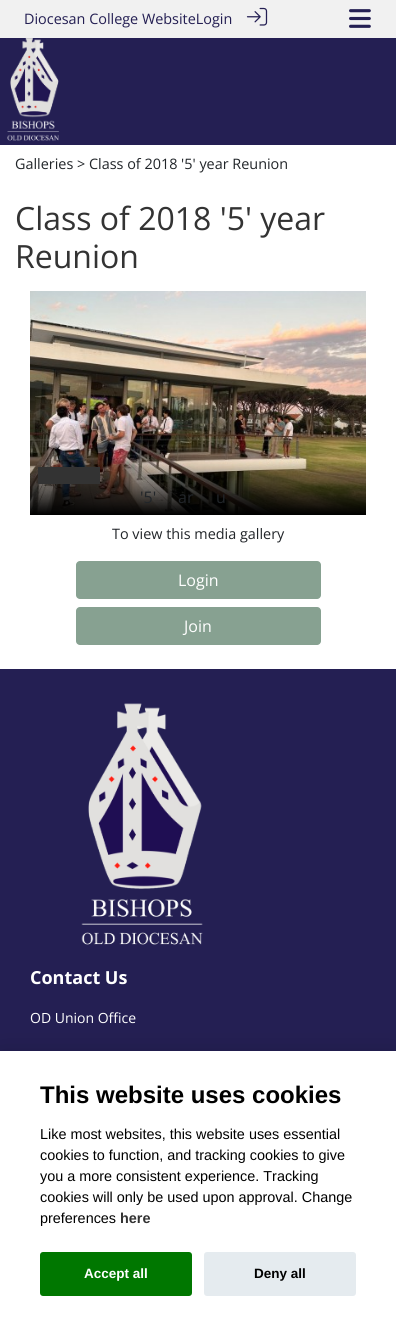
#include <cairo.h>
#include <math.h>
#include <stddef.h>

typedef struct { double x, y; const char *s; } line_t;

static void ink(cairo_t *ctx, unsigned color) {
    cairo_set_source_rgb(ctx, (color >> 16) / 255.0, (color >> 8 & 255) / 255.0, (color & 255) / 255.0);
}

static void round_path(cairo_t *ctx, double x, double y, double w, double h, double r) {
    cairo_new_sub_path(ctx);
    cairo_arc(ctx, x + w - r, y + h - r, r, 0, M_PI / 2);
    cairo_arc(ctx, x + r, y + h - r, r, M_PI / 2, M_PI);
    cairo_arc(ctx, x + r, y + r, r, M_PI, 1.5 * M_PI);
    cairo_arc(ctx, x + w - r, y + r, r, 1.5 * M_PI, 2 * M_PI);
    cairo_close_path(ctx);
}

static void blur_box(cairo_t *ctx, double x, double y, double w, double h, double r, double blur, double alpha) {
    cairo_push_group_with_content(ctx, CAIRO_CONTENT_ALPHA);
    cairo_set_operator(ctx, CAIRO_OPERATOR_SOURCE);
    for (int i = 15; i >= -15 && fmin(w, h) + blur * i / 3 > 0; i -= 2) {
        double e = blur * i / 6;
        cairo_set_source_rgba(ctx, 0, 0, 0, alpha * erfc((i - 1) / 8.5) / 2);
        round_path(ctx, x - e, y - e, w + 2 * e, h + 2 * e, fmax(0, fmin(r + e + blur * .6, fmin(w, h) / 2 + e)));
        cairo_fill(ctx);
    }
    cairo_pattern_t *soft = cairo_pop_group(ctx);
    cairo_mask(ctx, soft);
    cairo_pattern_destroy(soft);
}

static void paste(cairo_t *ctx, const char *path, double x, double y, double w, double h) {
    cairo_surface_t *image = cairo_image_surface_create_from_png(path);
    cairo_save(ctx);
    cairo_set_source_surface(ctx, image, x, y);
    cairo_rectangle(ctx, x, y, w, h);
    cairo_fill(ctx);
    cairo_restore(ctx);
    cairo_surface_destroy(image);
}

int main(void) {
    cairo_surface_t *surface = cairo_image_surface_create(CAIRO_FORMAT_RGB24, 396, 1334);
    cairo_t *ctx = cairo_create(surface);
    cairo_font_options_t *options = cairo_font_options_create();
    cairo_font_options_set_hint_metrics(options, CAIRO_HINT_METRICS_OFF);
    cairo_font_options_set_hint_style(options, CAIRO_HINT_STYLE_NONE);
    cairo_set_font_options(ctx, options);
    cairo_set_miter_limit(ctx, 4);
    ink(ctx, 0x241F53);
    cairo_paint(ctx);
    ink(ctx, 0xF1F1F1);
    cairo_rectangle(ctx, 0, 0, 396, 38);
    cairo_fill(ctx);
    cairo_select_font_face(ctx, "Open Sans", CAIRO_FONT_SLANT_NORMAL, CAIRO_FONT_WEIGHT_NORMAL);
    cairo_set_font_size(ctx, 14.4);
    ink(ctx, 0x241F53);
    cairo_move_to(ctx, 24, 24);
    cairo_show_text(ctx, "Diocesan College WebsiteLogin");
    paste(ctx, "media/1.png", 246, 7, 22, 19);
    paste(ctx, "media/2.png", 349, 9, 22, 19);
    paste(ctx, "media/3.png", 7, 38, 52, 103);
    ink(ctx, 0xFFFFFF);
    cairo_rectangle(ctx, 0, 145, 396, 524);
    cairo_fill(ctx);
    ink(ctx, 0x212529);
    cairo_move_to(ctx, 15, 169);
    cairo_show_text(ctx, "Galleries > Class of 2018 '5' year Reunion");
    cairo_set_font_size(ctx, 32);
    ink(ctx, 0x333333);
    cairo_move_to(ctx, 15, 230);
    cairo_show_text(ctx, "Class of 2018 '5' year");
    cairo_move_to(ctx, 15, 268);
    cairo_show_text(ctx, "Reunion");
    paste(ctx, "media/4.png", 30, 291, 336, 224);
    cairo_rectangle(ctx, 38, 467, 62, 17);
    cairo_fill(ctx);
    cairo_set_font_size(ctx, 16);
    ink(ctx, 0x212529);
    {
        static const line_t items[] = {
            {140, 503, "'5'"},
            {178, 503, "ar"},
            {216, 503, "u"},
        };
        for (size_t i = 0; i < sizeof items / sizeof *items; i++) {
            cairo_move_to(ctx, items[i].x, items[i].y);
            cairo_show_text(ctx, items[i].s);
        }
    }
    cairo_set_font_size(ctx, 14.4);
    cairo_move_to(ctx, 112, 539);
    cairo_show_text(ctx, "To view this media gallery");
    ink(ctx, 0x87A191);
    round_path(ctx, 76, 561, 245, 38, 4);
    cairo_fill(ctx);
    cairo_set_font_size(ctx, 16);
    ink(ctx, 0xFFFFFF);
    cairo_move_to(ctx, 178, 586);
    cairo_show_text(ctx, "Login");
    ink(ctx, 0x87A191);
    round_path(ctx, 76, 607, 245, 38, 4);
    cairo_fill(ctx);
    ink(ctx, 0xFFFFFF);
    cairo_move_to(ctx, 184, 632);
    cairo_show_text(ctx, "Join");
    paste(ctx, "media/5.png", 81, 703, 122, 242);
    cairo_select_font_face(ctx, "Open Sans", CAIRO_FONT_SLANT_NORMAL, CAIRO_FONT_WEIGHT_BOLD);
    cairo_set_font_size(ctx, 18);
    cairo_move_to(ctx, 30, 984);
    cairo_show_text(ctx, "Contact Us");
    cairo_select_font_face(ctx, "Open Sans", CAIRO_FONT_SLANT_NORMAL, CAIRO_FONT_WEIGHT_NORMAL);
    cairo_set_font_size(ctx, 14);
    cairo_move_to(ctx, 30, 1023);
    cairo_show_text(ctx, "OD Union Office");
    ink(ctx, 0x020203);
    blur_box(ctx, 0, 1061, 396, 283, 0, 15, 0.28);
    ink(ctx, 0xFFFFFF);
    cairo_rectangle(ctx, 0, 1051, 396, 283);
    cairo_fill(ctx);
    cairo_select_font_face(ctx, "Liberation Sans", CAIRO_FONT_SLANT_NORMAL, CAIRO_FONT_WEIGHT_BOLD);
    cairo_set_font_size(ctx, 24);
    ink(ctx, 0x000000);
    cairo_move_to(ctx, 40, 1103);
    cairo_show_text(ctx, "This website uses cookies");
    cairo_select_font_face(ctx, "Liberation Sans", CAIRO_FONT_SLANT_NORMAL, CAIRO_FONT_WEIGHT_NORMAL);
    cairo_set_font_size(ctx, 14.4);
    {
        static const line_t items[] = {
            {40, 1139, "Like most websites, this website uses essential"},
            {40, 1160, "cookies to function, and tracking cookies to give"},
            {40, 1181, "you a more consistent experience. Tracking"},
            {40, 1202, "cookies will only be used upon approval. Change"},
            {40, 1223, "preferences"},
        };
        for (size_t i = 0; i < sizeof items / sizeof *items; i++) {
            cairo_move_to(ctx, items[i].x, items[i].y);
            cairo_show_text(ctx, items[i].s);
        }
    }
    cairo_select_font_face(ctx, "Liberation Sans", CAIRO_FONT_SLANT_NORMAL, CAIRO_FONT_WEIGHT_BOLD);
    ink(ctx, 0x333333);
    cairo_move_to(ctx, 120, 1223);
    cairo_show_text(ctx, "here");
    ink(ctx, 0x007700);
    round_path(ctx, 40, 1252, 152, 44, 3);
    cairo_fill(ctx);
    cairo_set_font_size(ctx, 13.5);
    ink(ctx, 0xFFFFFF);
    cairo_move_to(ctx, 84, 1278);
    cairo_show_text(ctx, "Accept all");
    ink(ctx, 0xE5EBEF);
    round_path(ctx, 204, 1252, 152, 44, 3);
    cairo_fill(ctx);
    ink(ctx, 0x000000);
    cairo_move_to(ctx, 254, 1278);
    cairo_show_text(ctx, "Deny all");
    cairo_surface_write_to_png(surface, "image.png");
    cairo_font_options_destroy(options);
    cairo_destroy(ctx);
    cairo_surface_destroy(surface);
    return 0;
}
